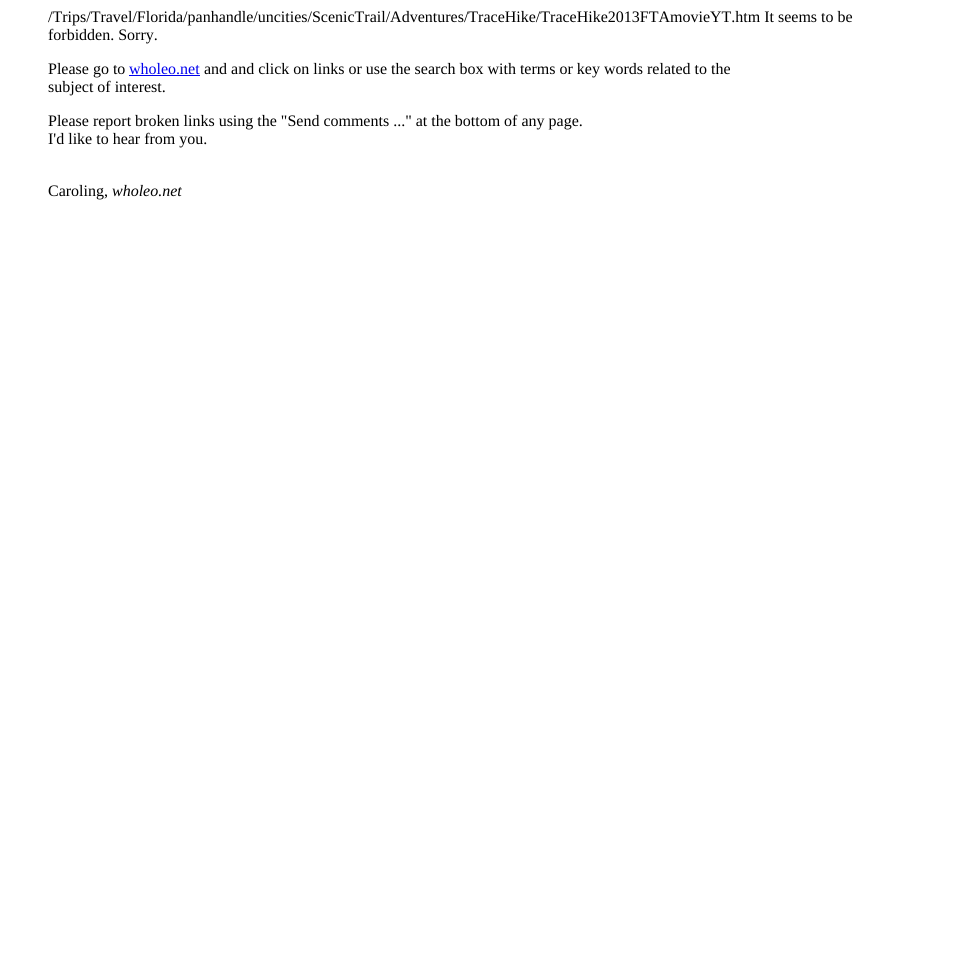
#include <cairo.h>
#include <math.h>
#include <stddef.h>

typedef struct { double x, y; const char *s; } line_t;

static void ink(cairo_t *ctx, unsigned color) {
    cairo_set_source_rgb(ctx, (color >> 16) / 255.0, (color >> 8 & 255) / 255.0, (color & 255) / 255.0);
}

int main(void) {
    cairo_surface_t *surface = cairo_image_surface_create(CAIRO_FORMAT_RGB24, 959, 970);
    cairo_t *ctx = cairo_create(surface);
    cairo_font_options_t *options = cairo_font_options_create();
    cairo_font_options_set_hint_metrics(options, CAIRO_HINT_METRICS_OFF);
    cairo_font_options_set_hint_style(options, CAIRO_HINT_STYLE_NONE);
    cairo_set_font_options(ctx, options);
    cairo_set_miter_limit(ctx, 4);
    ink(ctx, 0xFFFFFF);
    cairo_paint(ctx);
    cairo_select_font_face(ctx, "Liberation Serif", CAIRO_FONT_SLANT_NORMAL, CAIRO_FONT_WEIGHT_NORMAL);
    cairo_set_font_size(ctx, 16);
    ink(ctx, 0x000000);
    {
        static const line_t items[] = {
            {48, 22, "/Trips/Travel/Florida/panhandle/uncities/ScenicTrail/Adventures/TraceHike/TraceHike2013FTAmovieYT.htm It seems to be"},
            {48, 40, "forbidden. Sorry."},
            {48, 74, "Please go to"},
        };
        for (size_t i = 0; i < sizeof items / sizeof *items; i++) {
            cairo_move_to(ctx, items[i].x, items[i].y);
            cairo_show_text(ctx, items[i].s);
        }
    }
    ink(ctx, 0x0000EE);
    cairo_move_to(ctx, 129, 74);
    cairo_show_text(ctx, "wholeo.net");
    cairo_rectangle(ctx, 129, 75, 71, 1);
    cairo_fill(ctx);
    ink(ctx, 0x000000);
    {
        static const line_t items[] = {
            {204, 74, "and and click on links or use the search box with terms or key words related to the"},
            {48, 92, "subject of interest."},
            {48, 126, "Please report broken links using the \"Send comments ...\" at the bottom of any page."},
            {48, 144, "I'd like to hear from you."},
            {48, 196, "Caroling,"},
        };
        for (size_t i = 0; i < sizeof items / sizeof *items; i++) {
            cairo_move_to(ctx, items[i].x, items[i].y);
            cairo_show_text(ctx, items[i].s);
        }
    }
    cairo_select_font_face(ctx, "Liberation Serif", CAIRO_FONT_SLANT_ITALIC, CAIRO_FONT_WEIGHT_NORMAL);
    cairo_move_to(ctx, 112, 196);
    cairo_show_text(ctx, "wholeo.net");
    cairo_surface_write_to_png(surface, "image.png");
    cairo_font_options_destroy(options);
    cairo_destroy(ctx);
    cairo_surface_destroy(surface);
    return 0;
}
